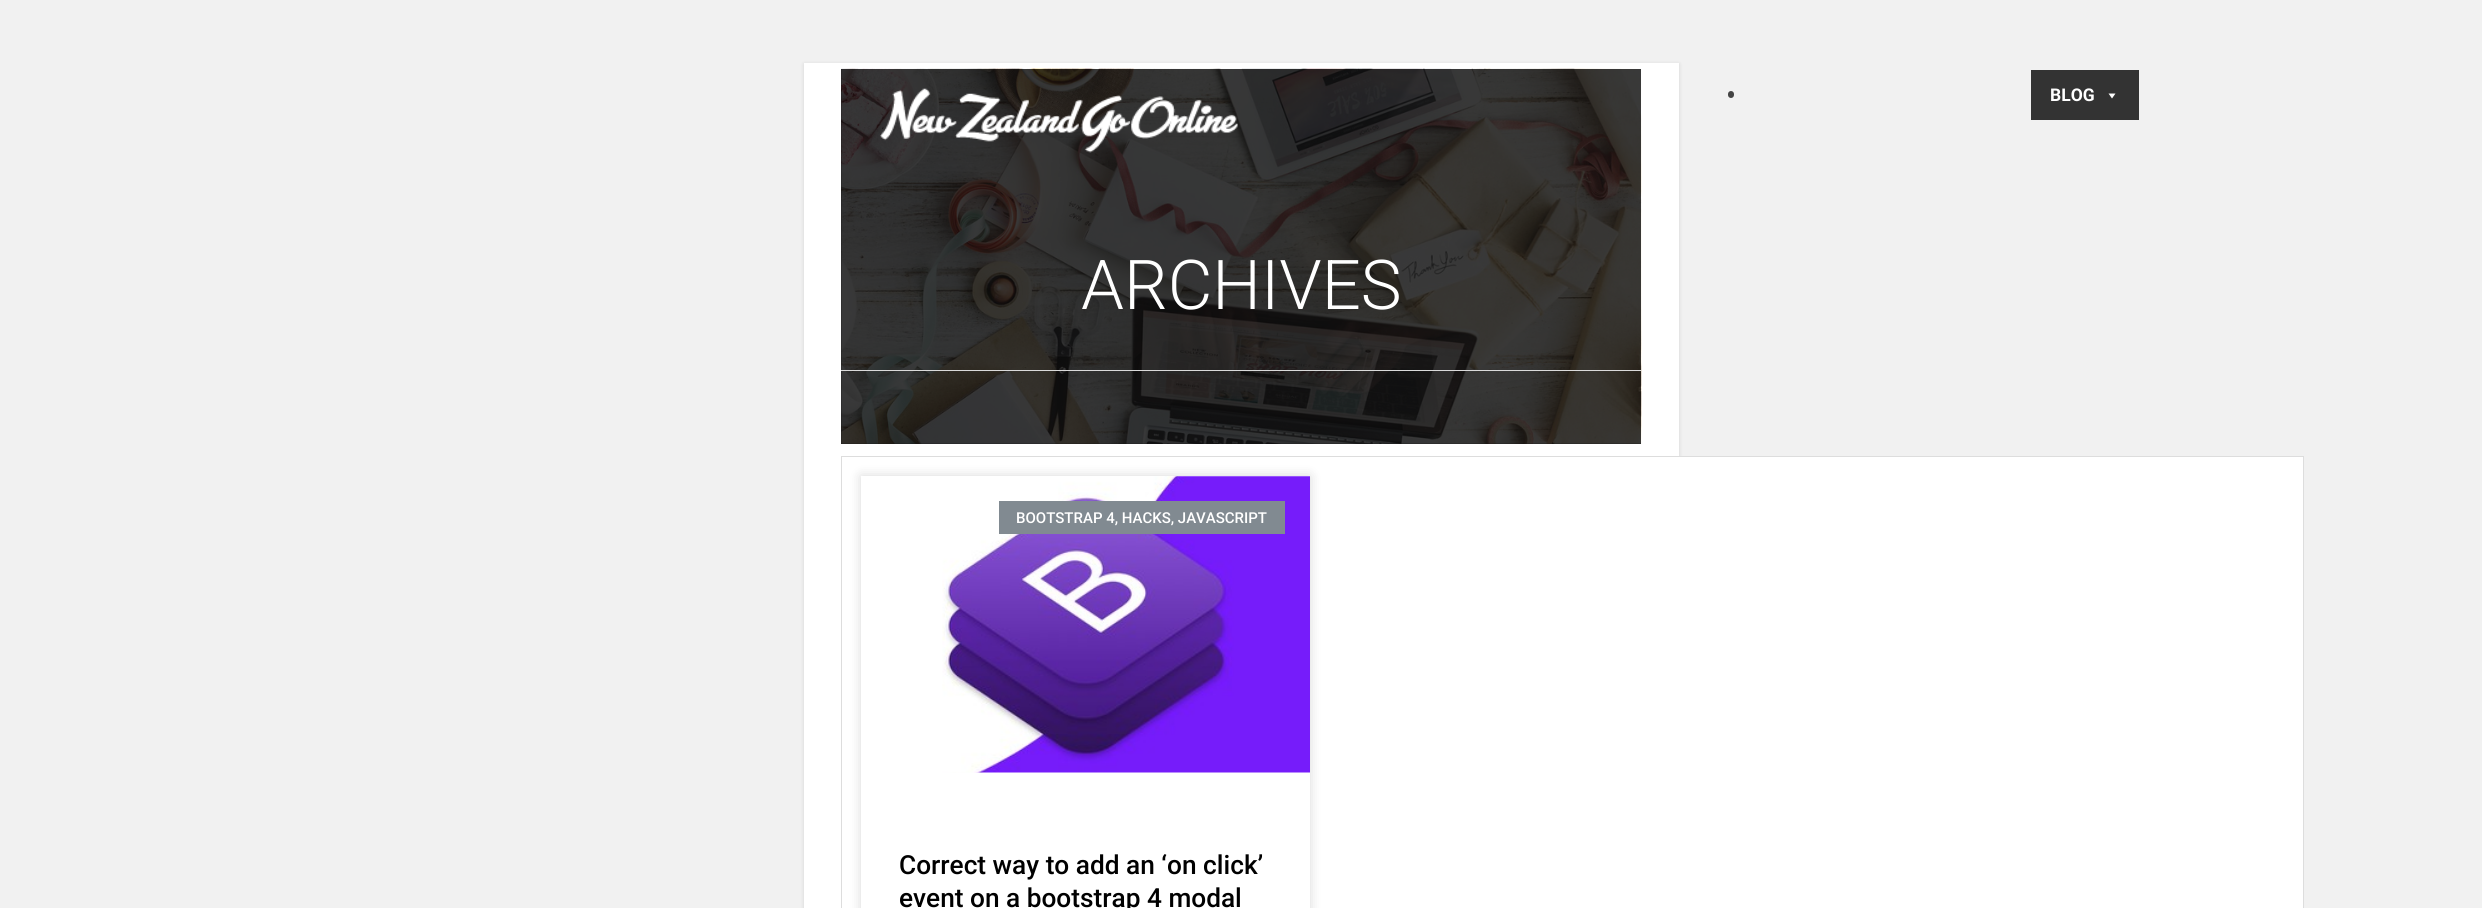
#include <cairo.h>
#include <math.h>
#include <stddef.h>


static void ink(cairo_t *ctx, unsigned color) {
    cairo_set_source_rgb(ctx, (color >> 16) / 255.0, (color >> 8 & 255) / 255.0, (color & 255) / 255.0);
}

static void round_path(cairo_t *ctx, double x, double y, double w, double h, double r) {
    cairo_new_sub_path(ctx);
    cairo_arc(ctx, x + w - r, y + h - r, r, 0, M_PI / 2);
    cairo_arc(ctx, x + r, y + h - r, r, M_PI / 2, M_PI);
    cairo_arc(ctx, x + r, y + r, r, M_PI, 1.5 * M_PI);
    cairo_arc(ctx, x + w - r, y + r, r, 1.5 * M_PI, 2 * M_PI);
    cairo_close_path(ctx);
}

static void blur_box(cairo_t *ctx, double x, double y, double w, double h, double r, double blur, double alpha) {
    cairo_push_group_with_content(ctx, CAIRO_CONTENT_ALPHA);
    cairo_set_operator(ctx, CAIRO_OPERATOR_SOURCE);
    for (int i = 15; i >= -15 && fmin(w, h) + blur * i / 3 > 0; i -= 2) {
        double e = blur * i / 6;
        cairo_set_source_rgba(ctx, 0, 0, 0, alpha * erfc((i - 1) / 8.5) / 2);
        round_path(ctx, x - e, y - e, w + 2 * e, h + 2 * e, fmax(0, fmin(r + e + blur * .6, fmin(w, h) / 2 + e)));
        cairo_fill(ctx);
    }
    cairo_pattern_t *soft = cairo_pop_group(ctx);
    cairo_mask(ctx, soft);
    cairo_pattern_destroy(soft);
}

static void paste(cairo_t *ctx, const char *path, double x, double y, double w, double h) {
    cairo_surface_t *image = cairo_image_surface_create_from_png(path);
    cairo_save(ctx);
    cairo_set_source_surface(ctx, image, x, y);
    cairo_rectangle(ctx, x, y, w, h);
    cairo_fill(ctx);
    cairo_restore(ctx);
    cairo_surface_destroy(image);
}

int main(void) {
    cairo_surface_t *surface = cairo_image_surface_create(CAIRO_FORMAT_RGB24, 2482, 908);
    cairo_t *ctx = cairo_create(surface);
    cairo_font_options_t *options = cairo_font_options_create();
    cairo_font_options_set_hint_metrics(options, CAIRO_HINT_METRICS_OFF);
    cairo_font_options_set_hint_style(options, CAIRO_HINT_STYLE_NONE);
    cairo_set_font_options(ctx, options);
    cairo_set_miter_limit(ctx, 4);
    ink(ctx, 0xF1F1F1);
    cairo_paint(ctx);
    ink(ctx, 0x000000);
    blur_box(ctx, 804, 64, 875, 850, 0, 2, 0.13);
    ink(ctx, 0xFFFFFF);
    cairo_rectangle(ctx, 804, 63, 875, 845);
    cairo_fill(ctx);
    ink(ctx, 0x151515);
    cairo_rectangle(ctx, 841, 69, 800, 375);
    cairo_fill(ctx);
    paste(ctx, "media/1.png", 841, 68, 801, 376);
    paste(ctx, "media/2.png", 880, 88, 358, 65);
    ink(ctx, 0x444444);
    round_path(ctx, 1728, 91, 6, 7, 3);
    cairo_fill(ctx);
    ink(ctx, 0x333333);
    cairo_rectangle(ctx, 2031, 70, 108, 50);
    cairo_fill(ctx);
    cairo_select_font_face(ctx, "Roboto", CAIRO_FONT_SLANT_NORMAL, CAIRO_FONT_WEIGHT_BOLD);
    cairo_set_font_size(ctx, 17.5);
    ink(ctx, 0xFFFFFF);
    cairo_move_to(ctx, 2050, 101);
    cairo_show_text(ctx, "BLOG");
    cairo_new_path(ctx);
    cairo_move_to(ctx, 2115.5, 93.5);
    cairo_line_to(ctx, 2112, 98.5);
    cairo_line_to(ctx, 2108.5, 93.5);
    cairo_close_path(ctx);
    cairo_fill(ctx);
    ink(ctx, 0xDADADA);
    cairo_rectangle(ctx, 841, 370, 800, 1);
    cairo_fill(ctx);
    cairo_select_font_face(ctx, "Roboto Light", CAIRO_FONT_SLANT_NORMAL, CAIRO_FONT_WEIGHT_NORMAL);
    cairo_set_font_size(ctx, 68.75);
    ink(ctx, 0xFFFFFF);
    cairo_move_to(ctx, 1081, 309);
    cairo_show_text(ctx, "ARCHIVES");
    cairo_rectangle(ctx, 1679, 457, 624, 451);
    cairo_fill(ctx);
    cairo_rectangle(ctx, 841.5, 456.5, 1462, 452);
    ink(ctx, 0xDDDDDD);
    cairo_set_line_width(ctx, 1);
    cairo_stroke(ctx);
    ink(ctx, 0x000000);
    blur_box(ctx, 861, 476, 449, 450, 0, 6, 0.15);
    ink(ctx, 0xFFFFFF);
    cairo_rectangle(ctx, 861, 476, 449, 432);
    cairo_fill(ctx);
    paste(ctx, "media/3.png", 942, 476, 368, 297);
    ink(ctx, 0x818A91);
    cairo_rectangle(ctx, 999, 501, 286, 33);
    cairo_fill(ctx);
    cairo_select_font_face(ctx, "Roboto Medium", CAIRO_FONT_SLANT_NORMAL, CAIRO_FONT_WEIGHT_NORMAL);
    cairo_set_font_size(ctx, 15);
    ink(ctx, 0xFFFFFF);
    cairo_move_to(ctx, 1016, 523);
    cairo_show_text(ctx, "BOOTSTRAP 4, HACKS, JAVASCRIPT");
    cairo_set_font_size(ctx, 26.25);
    ink(ctx, 0x000000);
    cairo_move_to(ctx, 899, 874);
    cairo_show_text(ctx, "Correct way to add an ‘on click’");
    cairo_move_to(ctx, 899, 907);
    cairo_show_text(ctx, "event on a bootstrap 4 modal");
    cairo_surface_write_to_png(surface, "image.png");
    cairo_font_options_destroy(options);
    cairo_destroy(ctx);
    cairo_surface_destroy(surface);
    return 0;
}
